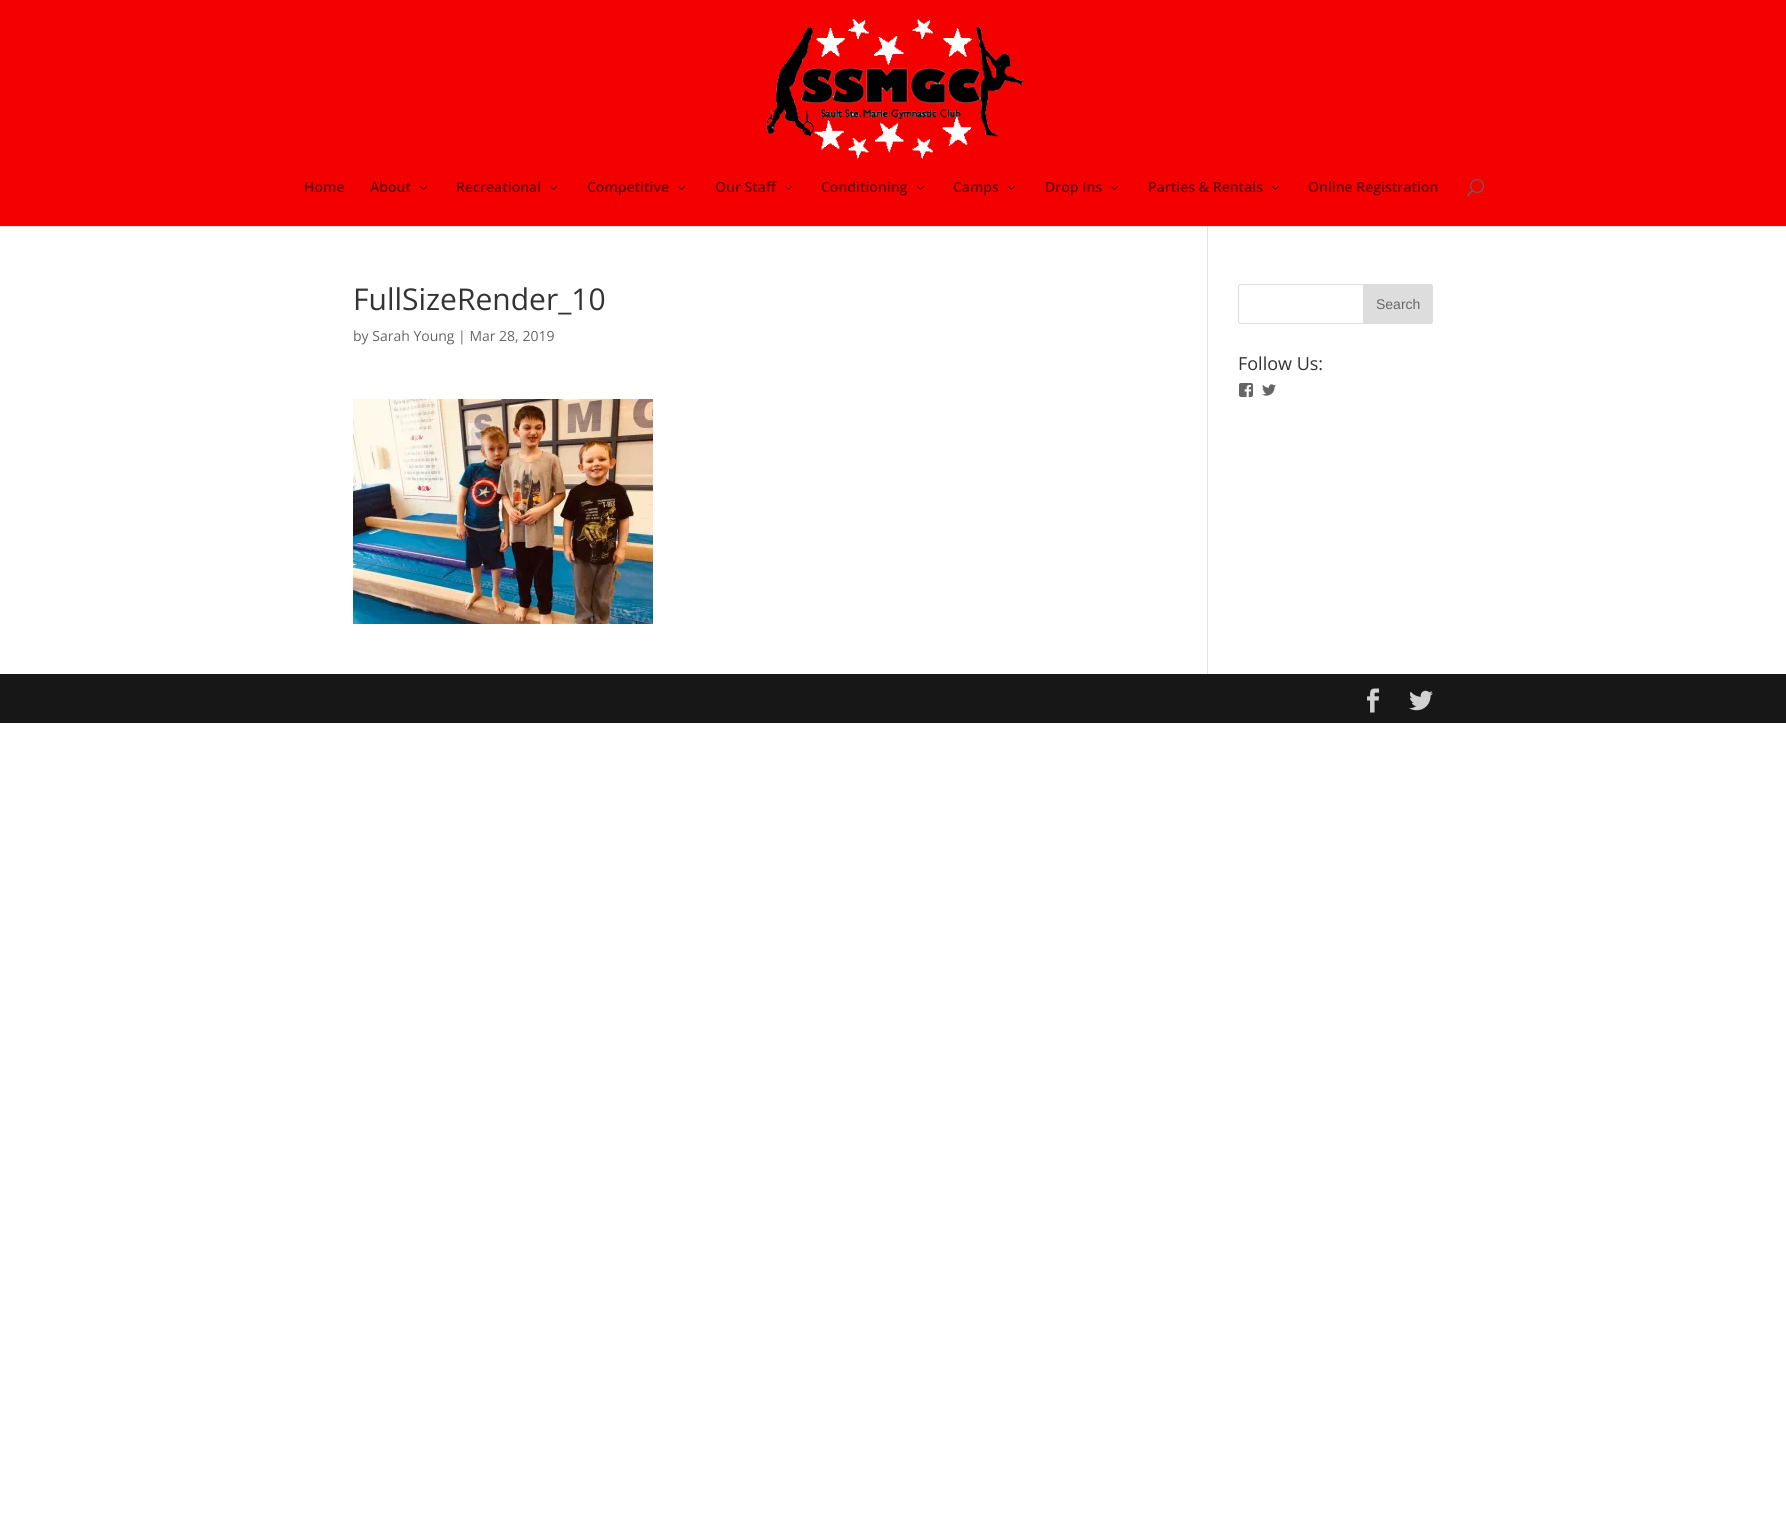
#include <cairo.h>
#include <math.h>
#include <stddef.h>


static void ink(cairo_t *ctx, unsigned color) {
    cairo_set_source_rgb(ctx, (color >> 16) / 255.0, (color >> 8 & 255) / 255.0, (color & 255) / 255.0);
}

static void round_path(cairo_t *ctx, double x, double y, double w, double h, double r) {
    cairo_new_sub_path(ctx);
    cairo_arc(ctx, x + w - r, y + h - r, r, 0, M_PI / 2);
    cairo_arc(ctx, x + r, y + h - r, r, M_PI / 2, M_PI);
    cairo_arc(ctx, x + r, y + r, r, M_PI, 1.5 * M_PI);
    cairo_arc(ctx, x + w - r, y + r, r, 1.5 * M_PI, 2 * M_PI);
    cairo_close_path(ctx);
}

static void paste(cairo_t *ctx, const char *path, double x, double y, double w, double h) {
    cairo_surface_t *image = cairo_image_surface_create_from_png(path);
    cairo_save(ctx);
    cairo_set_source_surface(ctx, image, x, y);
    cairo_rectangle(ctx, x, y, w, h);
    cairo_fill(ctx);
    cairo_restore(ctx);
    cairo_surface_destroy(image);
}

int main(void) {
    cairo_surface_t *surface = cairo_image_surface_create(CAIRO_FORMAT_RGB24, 1786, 1530);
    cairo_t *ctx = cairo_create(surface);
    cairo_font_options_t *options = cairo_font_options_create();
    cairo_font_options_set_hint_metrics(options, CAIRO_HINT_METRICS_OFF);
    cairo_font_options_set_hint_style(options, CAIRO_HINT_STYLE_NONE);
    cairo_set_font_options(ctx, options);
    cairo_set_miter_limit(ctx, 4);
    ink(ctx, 0xFFFFFF);
    cairo_paint(ctx);
    ink(ctx, 0xE6E6E6);
    cairo_rectangle(ctx, 0, 226, 1786, 1);
    cairo_fill(ctx);
    ink(ctx, 0xF40000);
    cairo_rectangle(ctx, 0, 0, 1786, 226);
    cairo_fill(ctx);
    paste(ctx, "media/1.png", 766, 19, 258, 140);
    cairo_select_font_face(ctx, "Open Sans SemiBold", CAIRO_FONT_SLANT_NORMAL, CAIRO_FONT_WEIGHT_NORMAL);
    cairo_set_font_size(ctx, 14);
    ink(ctx, 0x620000);
    cairo_move_to(ctx, 304, 192);
    cairo_show_text(ctx, "Home");
    cairo_move_to(ctx, 370, 192);
    cairo_show_text(ctx, "About");
    paste(ctx, "media/2.png", 419, 185, 9, 5);
    cairo_move_to(ctx, 456, 192);
    cairo_show_text(ctx, "Recreational");
    paste(ctx, "media/2.png", 549, 185, 9, 5);
    cairo_move_to(ctx, 587, 192);
    cairo_show_text(ctx, "Competitive");
    paste(ctx, "media/2.png", 677, 185, 9, 5);
    cairo_move_to(ctx, 715, 192);
    cairo_show_text(ctx, "Our Staff");
    paste(ctx, "media/2.png", 784, 185, 9, 5);
    cairo_move_to(ctx, 821, 192);
    cairo_show_text(ctx, "Conditioning");
    paste(ctx, "media/2.png", 916, 185, 9, 5);
    cairo_move_to(ctx, 953, 192);
    cairo_show_text(ctx, "Camps");
    paste(ctx, "media/2.png", 1007, 185, 9, 5);
    cairo_move_to(ctx, 1045, 192);
    cairo_show_text(ctx, "Drop Ins");
    paste(ctx, "media/2.png", 1110, 185, 9, 5);
    cairo_move_to(ctx, 1148, 192);
    cairo_show_text(ctx, "Parties & Rentals");
    paste(ctx, "media/2.png", 1271, 185, 9, 5);
    cairo_move_to(ctx, 1308, 192);
    cairo_show_text(ctx, "Online Registration");
    paste(ctx, "media/3.png", 1467, 179, 17, 18);
    ink(ctx, 0xE2E2E2);
    cairo_rectangle(ctx, 1207, 226, 1, 448);
    cairo_fill(ctx);
    ink(ctx, 0xCBCBCB);
    cairo_rectangle(ctx, 1207, 226, 1, 1);
    cairo_fill(ctx);
    cairo_select_font_face(ctx, "Open Sans", CAIRO_FONT_SLANT_NORMAL, CAIRO_FONT_WEIGHT_NORMAL);
    cairo_set_font_size(ctx, 30);
    ink(ctx, 0x333333);
    cairo_move_to(ctx, 353, 310);
    cairo_show_text(ctx, "FullSizeRender_10");
    cairo_set_font_size(ctx, 14);
    ink(ctx, 0x666666);
    cairo_move_to(ctx, 353, 341);
    cairo_show_text(ctx, "by Sarah Young | Mar 28, 2019");
    paste(ctx, "media/4.png", 353, 399, 300, 225);
    round_path(ctx, 1238.5, 284.5, 194, 39, 2.5);
    ink(ctx, 0xDDDDDD);
    cairo_set_line_width(ctx, 1);
    cairo_stroke(ctx);
    cairo_new_path(ctx);
    cairo_move_to(ctx, 1363.5, 284.5);
    cairo_line_to(ctx, 1430, 284.5);
    cairo_curve_to(ctx, 1431.5, 284.5, 1432.5, 285.5, 1432.5, 287);
    cairo_line_to(ctx, 1432.5, 321);
    cairo_curve_to(ctx, 1432.5, 322.5, 1431.5, 323.5, 1430, 323.5);
    cairo_line_to(ctx, 1363.5, 323.5);
    cairo_close_path(ctx);
    cairo_fill_preserve(ctx);
    cairo_stroke(ctx);
    cairo_select_font_face(ctx, "Liberation Sans", CAIRO_FONT_SLANT_NORMAL, CAIRO_FONT_WEIGHT_NORMAL);
    ink(ctx, 0x666666);
    cairo_move_to(ctx, 1376, 309);
    cairo_show_text(ctx, "Search");
    cairo_select_font_face(ctx, "Open Sans", CAIRO_FONT_SLANT_NORMAL, CAIRO_FONT_WEIGHT_NORMAL);
    cairo_set_font_size(ctx, 18);
    ink(ctx, 0x333333);
    cairo_move_to(ctx, 1238, 370);
    cairo_show_text(ctx, "Follow Us:");
    paste(ctx, "media/5.png", 1239, 383, 14, 14);
    paste(ctx, "media/6.png", 1262, 384, 14, 12);
    ink(ctx, 0x171717);
    cairo_rectangle(ctx, 0, 674, 1786, 49);
    cairo_fill(ctx);
    paste(ctx, "media/7.png", 1367, 688, 13, 25);
    paste(ctx, "media/8.png", 1409, 690, 24, 21);
    cairo_surface_write_to_png(surface, "image.png");
    cairo_font_options_destroy(options);
    cairo_destroy(ctx);
    cairo_surface_destroy(surface);
    return 0;
}
